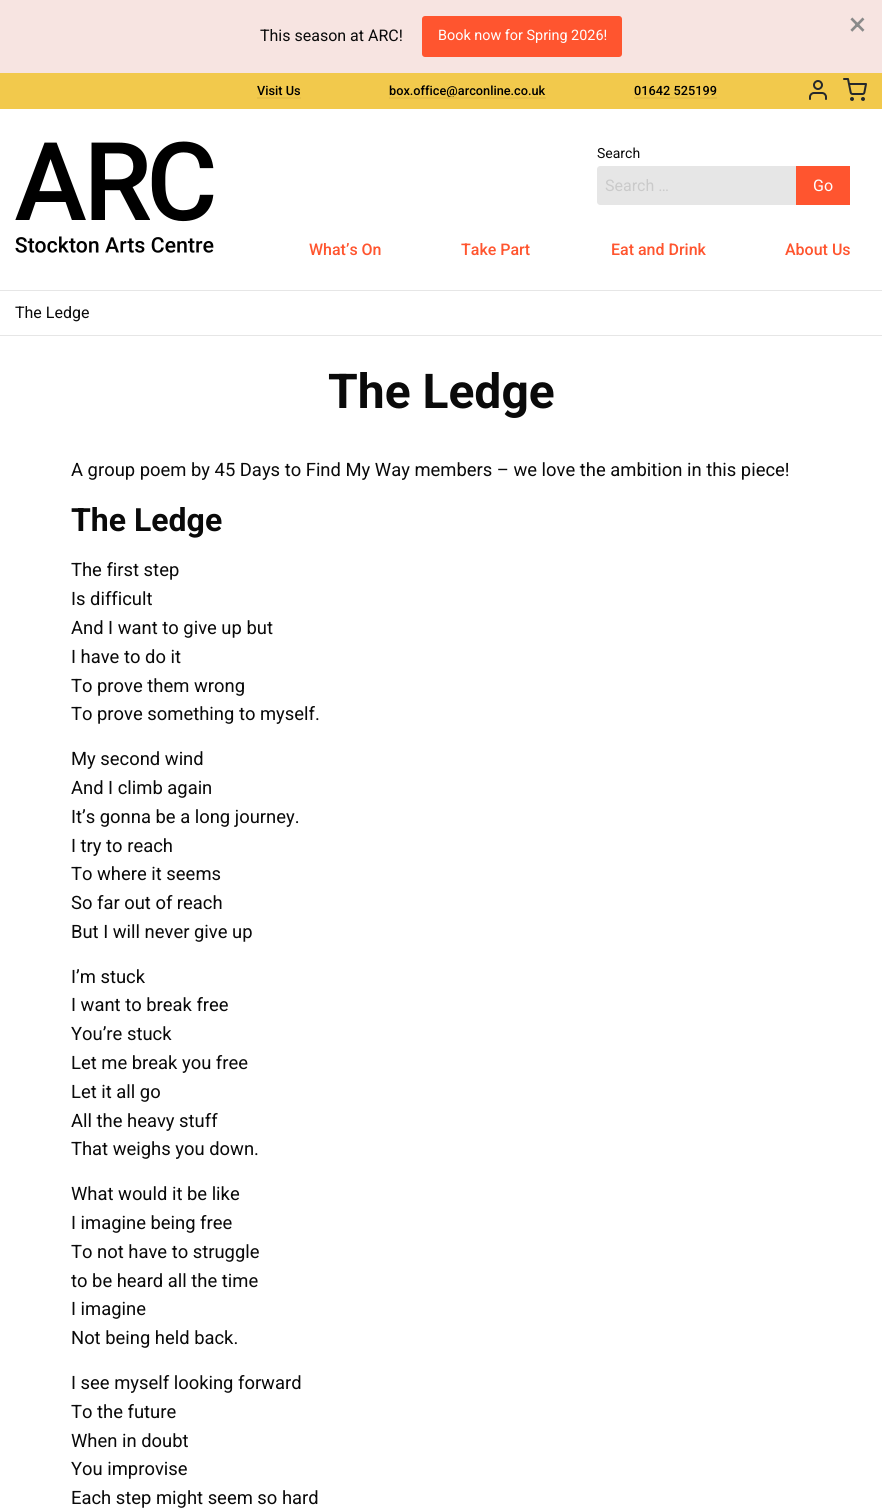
#include <cairo.h>
#include <math.h>
#include <stddef.h>

typedef struct { double x, y; const char *s; } line_t;

static void ink(cairo_t *ctx, unsigned color) {
    cairo_set_source_rgb(ctx, (color >> 16) / 255.0, (color >> 8 & 255) / 255.0, (color & 255) / 255.0);
}

static void round_path(cairo_t *ctx, double x, double y, double w, double h, double r) {
    cairo_new_sub_path(ctx);
    cairo_arc(ctx, x + w - r, y + h - r, r, 0, M_PI / 2);
    cairo_arc(ctx, x + r, y + h - r, r, M_PI / 2, M_PI);
    cairo_arc(ctx, x + r, y + r, r, M_PI, 1.5 * M_PI);
    cairo_arc(ctx, x + w - r, y + r, r, 1.5 * M_PI, 2 * M_PI);
    cairo_close_path(ctx);
}

static void paste(cairo_t *ctx, const char *path, double x, double y, double w, double h) {
    cairo_surface_t *image = cairo_image_surface_create_from_png(path);
    cairo_save(ctx);
    cairo_set_source_surface(ctx, image, x, y);
    cairo_rectangle(ctx, x, y, w, h);
    cairo_fill(ctx);
    cairo_restore(ctx);
    cairo_surface_destroy(image);
}

int main(void) {
    cairo_surface_t *surface = cairo_image_surface_create(CAIRO_FORMAT_RGB24, 882, 1511);
    cairo_t *ctx = cairo_create(surface);
    cairo_font_options_t *options = cairo_font_options_create();
    cairo_font_options_set_hint_metrics(options, CAIRO_HINT_METRICS_OFF);
    cairo_font_options_set_hint_style(options, CAIRO_HINT_STYLE_NONE);
    cairo_set_font_options(ctx, options);
    cairo_set_miter_limit(ctx, 4);
    ink(ctx, 0xFFFFFF);
    cairo_paint(ctx);
    ink(ctx, 0xF7E4E1);
    cairo_rectangle(ctx, 0, 0, 882, 73);
    cairo_fill(ctx);
    cairo_select_font_face(ctx, "Roboto", CAIRO_FONT_SLANT_NORMAL, CAIRO_FONT_WEIGHT_NORMAL);
    cairo_set_font_size(ctx, 32);
    ink(ctx, 0x8A8A8A);
    cairo_move_to(ctx, 849, 35);
    cairo_show_text(ctx, "×");
    cairo_set_font_size(ctx, 16);
    ink(ctx, 0x0A0A0A);
    cairo_move_to(ctx, 260, 41);
    cairo_show_text(ctx, "This season at ARC!");
    ink(ctx, 0xFF552F);
    round_path(ctx, 422, 16, 200, 41, 3);
    cairo_fill(ctx);
    cairo_set_font_size(ctx, 14.4);
    ink(ctx, 0xFEFEFE);
    cairo_move_to(ctx, 438, 40);
    cairo_show_text(ctx, "Book now for Spring 2026!");
    ink(ctx, 0xF2C94C);
    cairo_rectangle(ctx, 0, 73, 882, 36);
    cairo_fill(ctx);
    cairo_select_font_face(ctx, "Roboto Medium", CAIRO_FONT_SLANT_NORMAL, CAIRO_FONT_WEIGHT_NORMAL);
    cairo_set_font_size(ctx, 12.75);
    ink(ctx, 0x000000);
    cairo_move_to(ctx, 257, 95);
    cairo_show_text(ctx, "Visit Us");
    ink(ctx, 0xE6BF48);
    cairo_rectangle(ctx, 257, 97, 44, 2);
    cairo_fill(ctx);
    ink(ctx, 0x000000);
    cairo_move_to(ctx, 389, 95);
    cairo_show_text(ctx, "box.office@arconline.co.uk");
    ink(ctx, 0xE6BF48);
    cairo_rectangle(ctx, 389, 97, 157, 2);
    cairo_fill(ctx);
    ink(ctx, 0x000000);
    cairo_move_to(ctx, 634, 95);
    cairo_show_text(ctx, "01642 525199");
    ink(ctx, 0xE6BF48);
    cairo_rectangle(ctx, 634, 97, 83, 2);
    cairo_fill(ctx);
    paste(ctx, "media/1.png", 809, 80, 18, 20);
    paste(ctx, "media/2.png", 843, 78, 24, 23);
    paste(ctx, "media/3.png", 15, 141, 199, 112);
    cairo_select_font_face(ctx, "Roboto", CAIRO_FONT_SLANT_NORMAL, CAIRO_FONT_WEIGHT_NORMAL);
    cairo_set_font_size(ctx, 14);
    ink(ctx, 0x0A0A0A);
    cairo_move_to(ctx, 597, 158);
    cairo_show_text(ctx, "Search");
    ink(ctx, 0xE6E6E6);
    cairo_new_path(ctx);
    cairo_move_to(ctx, 600, 166);
    cairo_line_to(ctx, 796, 166);
    cairo_line_to(ctx, 796, 205);
    cairo_line_to(ctx, 600, 205);
    cairo_curve_to(ctx, 598.5, 205, 597, 203.5, 597, 202);
    cairo_line_to(ctx, 597, 169);
    cairo_curve_to(ctx, 597, 167.5, 598.5, 166, 600, 166);
    cairo_close_path(ctx);
    cairo_fill(ctx);
    cairo_set_font_size(ctx, 16);
    ink(ctx, 0xCACACA);
    cairo_move_to(ctx, 605, 191);
    cairo_show_text(ctx, "Search …");
    ink(ctx, 0xFF552F);
    cairo_rectangle(ctx, 796, 166, 54, 39);
    cairo_fill(ctx);
    ink(ctx, 0xFEFEFE);
    cairo_move_to(ctx, 813, 191);
    cairo_show_text(ctx, "Go");
    cairo_select_font_face(ctx, "Roboto Medium", CAIRO_FONT_SLANT_NORMAL, CAIRO_FONT_WEIGHT_NORMAL);
    ink(ctx, 0xFF552F);
    {
        static const line_t items[] = {
            {309, 255, "What’s On"},
            {461, 255, "Take Part"},
            {611, 255, "Eat and Drink"},
            {785, 255, "About Us"},
        };
        for (size_t i = 0; i < sizeof items / sizeof *items; i++) {
            cairo_move_to(ctx, items[i].x, items[i].y);
            cairo_show_text(ctx, items[i].s);
        }
    }
    ink(ctx, 0xE6E6E6);
    cairo_rectangle(ctx, 0, 290, 882, 1);
    cairo_fill(ctx);
    cairo_rectangle(ctx, 0, 335, 882, 1);
    cairo_fill(ctx);
    cairo_select_font_face(ctx, "Roboto", CAIRO_FONT_SLANT_NORMAL, CAIRO_FONT_WEIGHT_NORMAL);
    ink(ctx, 0x0A0A0A);
    cairo_move_to(ctx, 15, 318);
    cairo_show_text(ctx, "The Ledge");
    cairo_select_font_face(ctx, "Roboto", CAIRO_FONT_SLANT_NORMAL, CAIRO_FONT_WEIGHT_BOLD);
    cairo_set_font_size(ctx, 48);
    cairo_move_to(ctx, 328, 408);
    cairo_show_text(ctx, "The Ledge");
    cairo_select_font_face(ctx, "Roboto", CAIRO_FONT_SLANT_NORMAL, CAIRO_FONT_WEIGHT_NORMAL);
    cairo_set_font_size(ctx, 18.4);
    cairo_move_to(ctx, 71, 476);
    cairo_show_text(ctx, "A group poem by 45 Days to Find My Way members – we love the ambition in this piece!");
    cairo_select_font_face(ctx, "Roboto", CAIRO_FONT_SLANT_NORMAL, CAIRO_FONT_WEIGHT_BOLD);
    cairo_set_font_size(ctx, 32);
    cairo_move_to(ctx, 71, 531);
    cairo_show_text(ctx, "The Ledge");
    cairo_select_font_face(ctx, "Roboto", CAIRO_FONT_SLANT_NORMAL, CAIRO_FONT_WEIGHT_NORMAL);
    cairo_set_font_size(ctx, 18.4);
    {
        static const line_t items[] = {
            {71, 576, "The first step"},
            {71, 605, "Is difficult"},
            {71, 634, "And I want to give up but"},
            {71, 663, "I have to do it"},
            {71, 692, "To prove them wrong"},
            {71, 720, "To prove something to myself."},
            {71, 765, "My second wind"},
            {71, 794, "And I climb again"},
            {71, 823, "It’s gonna be a long journey."},
            {71, 852, "I try to reach"},
            {71, 880, "To where it seems"},
            {71, 909, "So far out of reach"},
            {71, 938, "But I will never give up"},
            {71, 983, "I’m stuck"},
            {71, 1011, "I want to break free"},
            {71, 1040, "You’re stuck"},
            {71, 1069, "Let me break you free"},
            {71, 1098, "Let it all go"},
            {71, 1127, "All the heavy stuff"},
            {71, 1155, "That weighs you down."},
            {71, 1200, "What would it be like"},
            {71, 1229, "I imagine being free"},
            {71, 1258, "To not have to struggle"},
            {71, 1287, "to be heard all the time"},
            {71, 1315, "I imagine"},
            {71, 1344, "Not being held back."},
            {71, 1389, "I see myself looking forward"},
            {71, 1418, "To the future"},
            {71, 1447, "When in doubt"},
            {71, 1475, "You improvise"},
            {71, 1504, "Each step might seem so hard"},
        };
        for (size_t i = 0; i < sizeof items / sizeof *items; i++) {
            cairo_move_to(ctx, items[i].x, items[i].y);
            cairo_show_text(ctx, items[i].s);
        }
    }
    cairo_surface_write_to_png(surface, "image.png");
    cairo_font_options_destroy(options);
    cairo_destroy(ctx);
    cairo_surface_destroy(surface);
    return 0;
}
